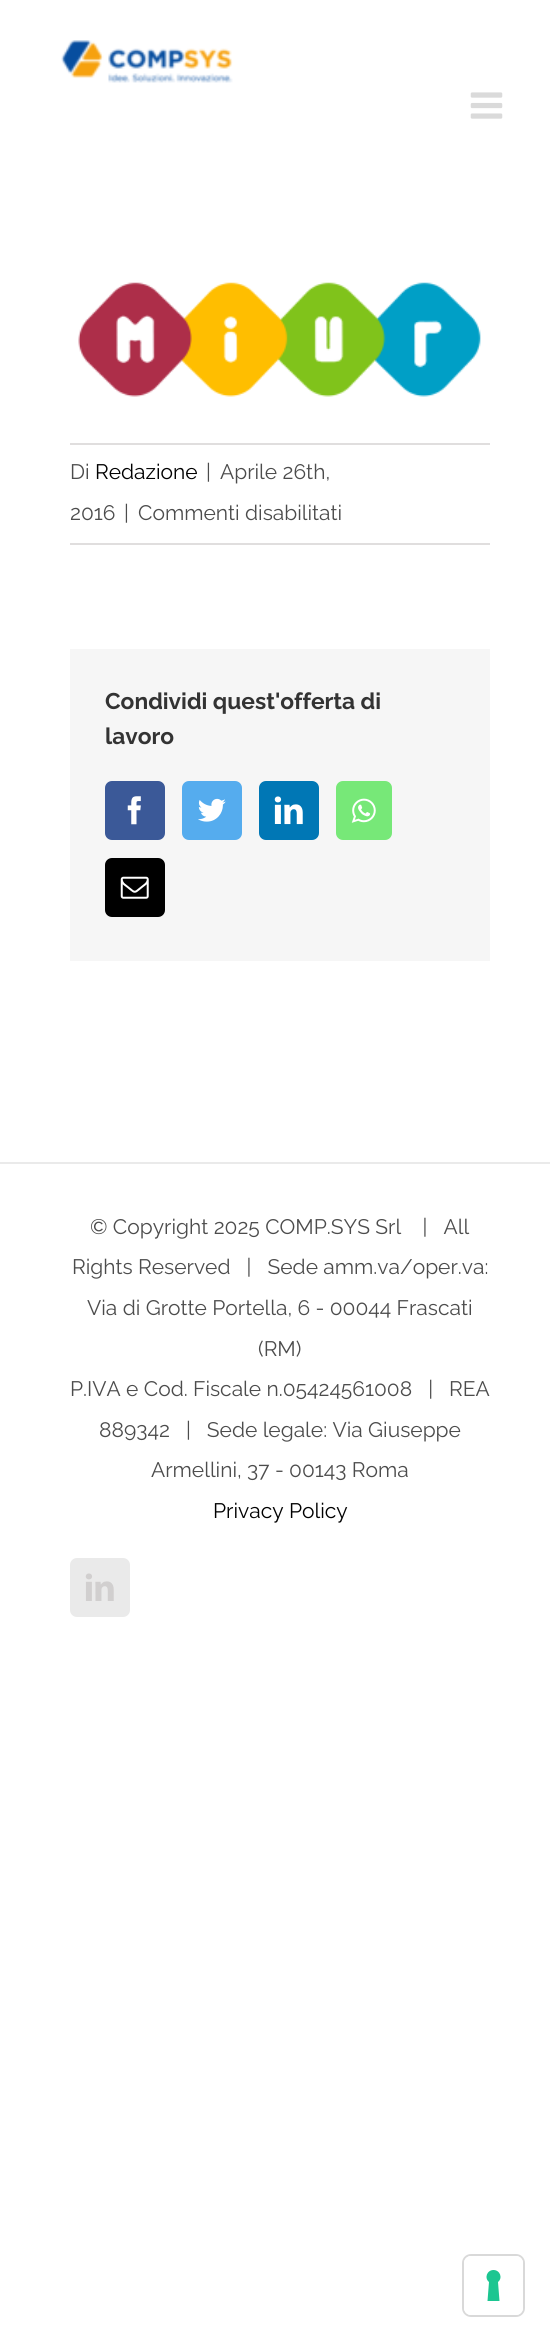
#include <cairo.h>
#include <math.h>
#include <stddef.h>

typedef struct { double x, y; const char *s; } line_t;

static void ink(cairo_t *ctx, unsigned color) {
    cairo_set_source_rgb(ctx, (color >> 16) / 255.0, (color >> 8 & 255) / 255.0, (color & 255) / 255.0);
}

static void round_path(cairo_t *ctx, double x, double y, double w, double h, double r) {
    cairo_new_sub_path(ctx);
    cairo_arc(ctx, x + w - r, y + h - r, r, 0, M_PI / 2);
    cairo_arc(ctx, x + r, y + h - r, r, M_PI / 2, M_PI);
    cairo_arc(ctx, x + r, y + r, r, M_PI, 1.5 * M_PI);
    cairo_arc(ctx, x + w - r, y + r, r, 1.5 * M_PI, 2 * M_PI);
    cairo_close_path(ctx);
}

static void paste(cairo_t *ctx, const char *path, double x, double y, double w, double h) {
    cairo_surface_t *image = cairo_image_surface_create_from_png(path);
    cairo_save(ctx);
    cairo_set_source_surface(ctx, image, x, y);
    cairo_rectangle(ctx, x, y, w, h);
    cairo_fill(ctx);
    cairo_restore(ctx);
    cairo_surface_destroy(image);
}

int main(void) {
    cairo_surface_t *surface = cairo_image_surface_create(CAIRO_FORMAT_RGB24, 550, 2342);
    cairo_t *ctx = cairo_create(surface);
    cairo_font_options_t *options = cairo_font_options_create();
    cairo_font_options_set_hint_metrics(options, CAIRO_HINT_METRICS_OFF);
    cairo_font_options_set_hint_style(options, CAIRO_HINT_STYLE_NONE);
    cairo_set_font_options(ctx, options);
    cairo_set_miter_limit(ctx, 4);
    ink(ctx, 0xFFFFFF);
    cairo_paint(ctx);
    paste(ctx, "media/1.png", 61, 40, 172, 43);
    paste(ctx, "media/2.png", 470, 92, 33, 27);
    paste(ctx, "media/3.png", 78, 282, 403, 115);
    ink(ctx, 0xE0DEDE);
    cairo_rectangle(ctx, 70, 443, 420, 2);
    cairo_fill(ctx);
    cairo_rectangle(ctx, 70, 543, 420, 2);
    cairo_fill(ctx);
    cairo_select_font_face(ctx, "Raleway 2 Thin", CAIRO_FONT_SLANT_NORMAL, CAIRO_FONT_WEIGHT_NORMAL);
    cairo_set_font_size(ctx, 21);
    ink(ctx, 0x4C4C4C);
    cairo_move_to(ctx, 70, 479);
    cairo_show_text(ctx, "Di");
    ink(ctx, 0x000000);
    cairo_move_to(ctx, 95, 479);
    cairo_show_text(ctx, "Redazione");
    ink(ctx, 0x4C4C4C);
    {
        static const line_t items[] = {
            {206, 479, "|"},
            {220, 479, "Aprile 26th,"},
            {70, 520, "2016"},
            {124, 520, "|"},
            {138, 520, "Commenti disabilitati"},
        };
        for (size_t i = 0; i < sizeof items / sizeof *items; i++) {
            cairo_move_to(ctx, items[i].x, items[i].y);
            cairo_show_text(ctx, items[i].s);
        }
    }
    ink(ctx, 0xF6F6F6);
    cairo_rectangle(ctx, 70, 649, 420, 312);
    cairo_fill(ctx);
    cairo_select_font_face(ctx, "Raleway Thin", CAIRO_FONT_SLANT_NORMAL, CAIRO_FONT_WEIGHT_NORMAL);
    cairo_set_font_size(ctx, 22.75);
    ink(ctx, 0x333333);
    cairo_move_to(ctx, 105, 709);
    cairo_show_text(ctx, "Condividi quest'offerta di");
    cairo_move_to(ctx, 105, 744);
    cairo_show_text(ctx, "lavoro");
    ink(ctx, 0x3B5998);
    round_path(ctx, 106, 782, 58, 57, 6);
    cairo_fill_preserve(ctx);
    cairo_stroke(ctx);
    paste(ctx, "media/4.png", 127, 796, 14, 29);
    ink(ctx, 0x55ACEE);
    round_path(ctx, 183, 782, 58, 57, 6);
    cairo_fill_preserve(ctx);
    cairo_stroke(ctx);
    paste(ctx, "media/5.png", 198, 798, 28, 24);
    ink(ctx, 0x0077B5);
    round_path(ctx, 260, 782, 58, 57, 6);
    cairo_fill_preserve(ctx);
    cairo_stroke(ctx);
    paste(ctx, "media/6.png", 274, 796, 29, 29);
    ink(ctx, 0x77E878);
    round_path(ctx, 337, 782, 54, 57, 6);
    cairo_fill_preserve(ctx);
    cairo_stroke(ctx);
    paste(ctx, "media/7.png", 351, 798, 25, 25);
    ink(ctx, 0x000000);
    round_path(ctx, 106, 859, 58, 57, 6);
    cairo_fill_preserve(ctx);
    cairo_stroke(ctx);
    paste(ctx, "media/8.png", 120, 876, 29, 23);
    ink(ctx, 0xEAEAEA);
    cairo_rectangle(ctx, 0, 1162, 550, 2);
    cairo_fill(ctx);
    cairo_select_font_face(ctx, "Raleway 2 Thin", CAIRO_FONT_SLANT_NORMAL, CAIRO_FONT_WEIGHT_NORMAL);
    cairo_set_font_size(ctx, 21);
    ink(ctx, 0x4C4C4C);
    {
        static const line_t items[] = {
            {90, 1234, "© Copyright 2025 COMP.SYS Srl    |   All"},
            {72, 1274, "Rights Reserved   |   Sede amm.va/oper.va:"},
            {87, 1315, "Via di Grotte Portella, 6 - 00044 Frascati"},
            {258, 1356, "(RM)"},
            {70, 1396, "P.IVA e Cod. Fiscale n.05424561008   |   REA"},
            {99, 1437, "889342   |   Sede legale: Via Giuseppe"},
            {151, 1477, "Armellini, 37 - 00143 Roma"},
        };
        for (size_t i = 0; i < sizeof items / sizeof *items; i++) {
            cairo_move_to(ctx, items[i].x, items[i].y);
            cairo_show_text(ctx, items[i].s);
        }
    }
    ink(ctx, 0x000000);
    cairo_move_to(ctx, 213, 1518);
    cairo_show_text(ctx, "Privacy Policy");
    ink(ctx, 0xEAEAEA);
    round_path(ctx, 71, 1559, 58, 57, 6);
    cairo_fill_preserve(ctx);
    cairo_stroke(ctx);
    paste(ctx, "media/9.png", 85, 1573, 29, 28);
    round_path(ctx, 463, 2255, 61, 61, 8);
    ink(ctx, 0xD9D9D9);
    cairo_stroke(ctx);
    ink(ctx, 0xFFFFFF);
    round_path(ctx, 464, 2256, 59, 59, 7);
    cairo_fill(ctx);
    ink(ctx, 0x1CC691);
    cairo_set_fill_rule(ctx, CAIRO_FILL_RULE_EVEN_ODD);
    cairo_new_path(ctx);
    cairo_move_to(ctx, 493.5, 2270);
    cairo_curve_to(ctx, 500, 2270, 503, 2278, 498, 2282);
    cairo_line_to(ctx, 499.5, 2301);
    cairo_line_to(ctx, 487.5, 2301);
    cairo_line_to(ctx, 489, 2282);
    cairo_curve_to(ctx, 484, 2278, 487, 2270, 493.5, 2270);
    cairo_close_path(ctx);
    cairo_fill(ctx);
    cairo_surface_write_to_png(surface, "image.png");
    cairo_font_options_destroy(options);
    cairo_destroy(ctx);
    cairo_surface_destroy(surface);
    return 0;
}
